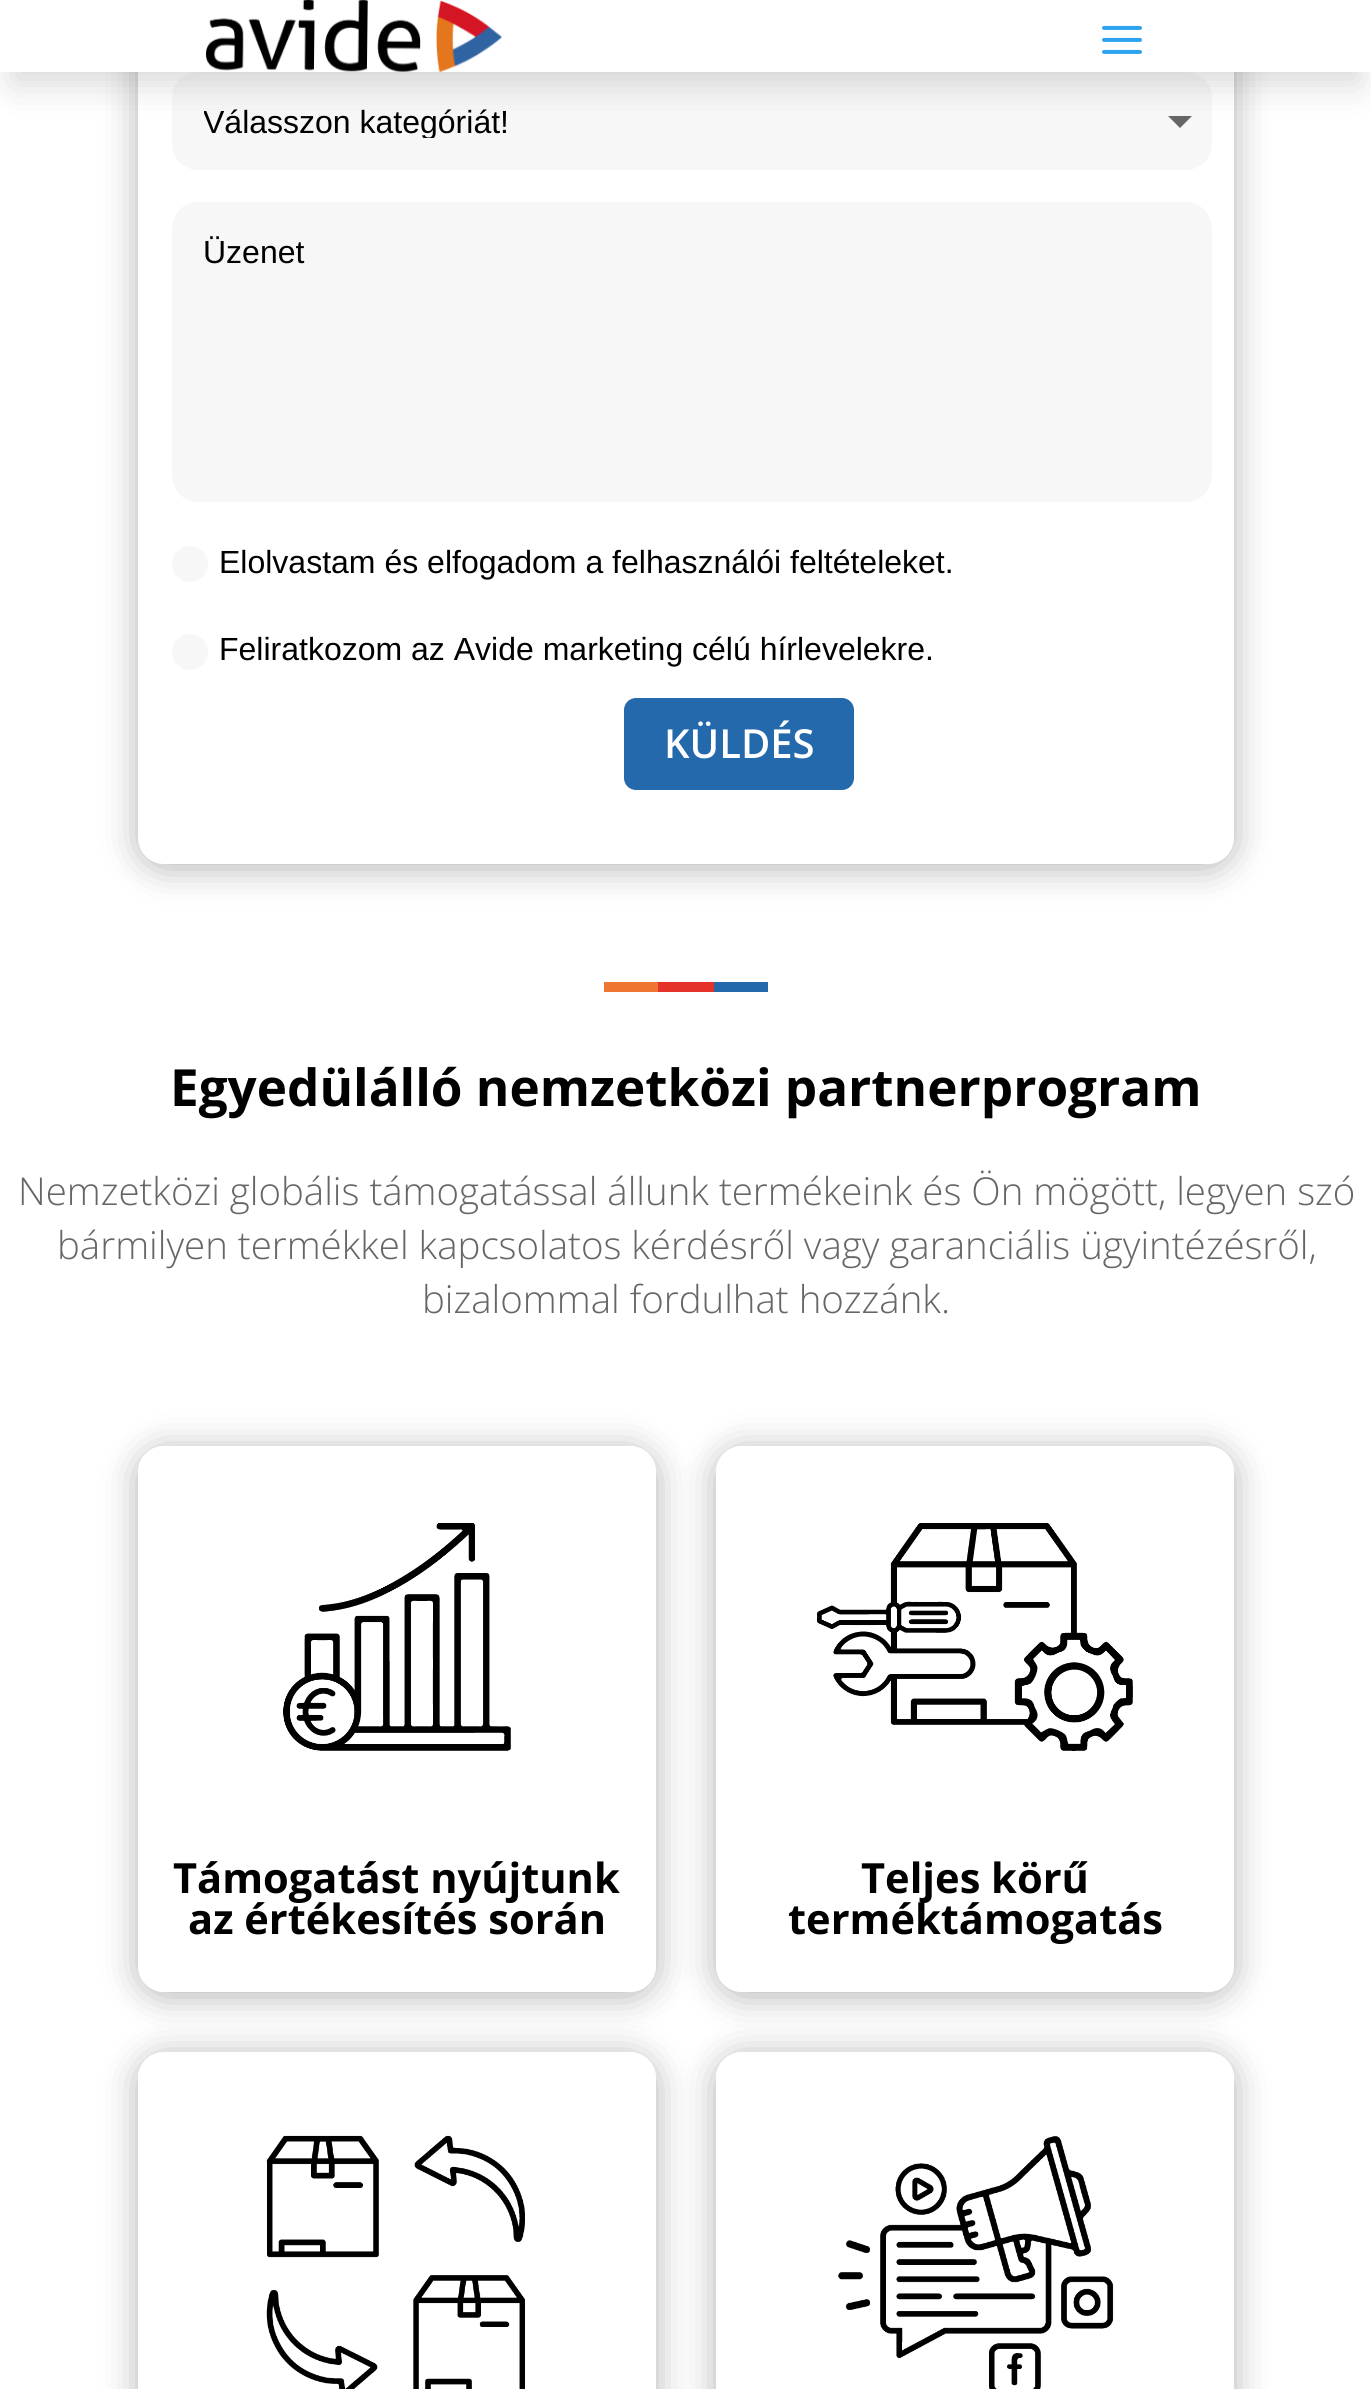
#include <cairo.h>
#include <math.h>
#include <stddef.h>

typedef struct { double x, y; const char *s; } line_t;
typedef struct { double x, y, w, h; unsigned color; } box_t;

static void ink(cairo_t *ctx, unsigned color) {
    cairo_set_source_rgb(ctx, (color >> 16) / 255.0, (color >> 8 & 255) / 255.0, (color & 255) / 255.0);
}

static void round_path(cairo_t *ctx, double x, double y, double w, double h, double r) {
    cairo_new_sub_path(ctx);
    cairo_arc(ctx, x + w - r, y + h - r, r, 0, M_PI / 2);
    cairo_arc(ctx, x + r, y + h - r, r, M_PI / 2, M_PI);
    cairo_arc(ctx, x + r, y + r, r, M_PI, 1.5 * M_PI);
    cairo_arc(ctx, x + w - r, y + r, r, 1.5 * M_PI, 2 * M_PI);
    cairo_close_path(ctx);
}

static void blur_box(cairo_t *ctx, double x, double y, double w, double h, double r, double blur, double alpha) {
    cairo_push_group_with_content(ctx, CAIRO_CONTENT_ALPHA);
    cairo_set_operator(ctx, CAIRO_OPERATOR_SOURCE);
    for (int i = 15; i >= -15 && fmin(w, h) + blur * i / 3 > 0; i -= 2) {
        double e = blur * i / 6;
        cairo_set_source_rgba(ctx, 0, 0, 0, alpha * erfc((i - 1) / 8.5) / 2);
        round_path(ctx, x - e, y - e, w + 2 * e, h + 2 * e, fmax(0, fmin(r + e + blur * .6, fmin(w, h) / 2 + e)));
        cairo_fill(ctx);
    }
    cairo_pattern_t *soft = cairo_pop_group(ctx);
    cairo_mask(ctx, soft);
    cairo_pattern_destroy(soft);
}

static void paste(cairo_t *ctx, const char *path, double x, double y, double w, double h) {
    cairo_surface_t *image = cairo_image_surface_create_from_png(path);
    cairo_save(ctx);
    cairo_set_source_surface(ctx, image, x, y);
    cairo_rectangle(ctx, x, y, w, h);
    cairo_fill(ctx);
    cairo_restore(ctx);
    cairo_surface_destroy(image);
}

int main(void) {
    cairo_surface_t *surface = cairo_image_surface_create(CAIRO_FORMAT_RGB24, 1371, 2389);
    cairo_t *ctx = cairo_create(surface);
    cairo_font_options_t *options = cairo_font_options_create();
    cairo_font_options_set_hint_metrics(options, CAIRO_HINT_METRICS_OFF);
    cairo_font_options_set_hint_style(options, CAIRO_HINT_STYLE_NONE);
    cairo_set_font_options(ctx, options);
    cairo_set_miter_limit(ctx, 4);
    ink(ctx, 0xFFFFFF);
    cairo_paint(ctx);
    ink(ctx, 0x000000);
    blur_box(ctx, 138, -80, 1096, 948, 26, 18, 0.3);
    ink(ctx, 0xFFFFFF);
    round_path(ctx, 138, -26, 1096, 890, 26);
    cairo_fill(ctx);
    ink(ctx, 0xF7F7F7);
    round_path(ctx, 172, 72, 1040, 98, 26);
    cairo_fill(ctx);
    ink(ctx, 0x666666);
    cairo_new_path(ctx);
    cairo_move_to(ctx, 1168, 116);
    cairo_line_to(ctx, 1192, 116);
    cairo_line_to(ctx, 1180, 128);
    cairo_close_path(ctx);
    cairo_fill(ctx);
    ink(ctx, 0x000000);
    blur_box(ctx, 12, 36, 1348, 48, 0, 18, 0.15);
    ink(ctx, 0xFFFFFF);
    cairo_rectangle(ctx, 0, 0, 1371, 72);
    cairo_fill(ctx);
    paste(ctx, "media/1.png", 206, 0, 296, 72);
    paste(ctx, "media/2.png", 1102, 25, 40, 29);
    cairo_save(ctx);
    cairo_rectangle(ctx, 204, 104, 968, 34);
    cairo_clip(ctx);
    cairo_select_font_face(ctx, "Liberation Sans", CAIRO_FONT_SLANT_NORMAL, CAIRO_FONT_WEIGHT_NORMAL);
    cairo_set_font_size(ctx, 32);
    ink(ctx, 0x000000);
    cairo_move_to(ctx, 203, 133);
    cairo_show_text(ctx, "Válasszon kategóriát!");
    cairo_restore(ctx);
    ink(ctx, 0xF7F7F7);
    round_path(ctx, 172, 202, 1040, 300, 26);
    cairo_fill(ctx);
    cairo_select_font_face(ctx, "Liberation Sans", CAIRO_FONT_SLANT_NORMAL, CAIRO_FONT_WEIGHT_NORMAL);
    cairo_set_font_size(ctx, 32);
    ink(ctx, 0x000000);
    cairo_move_to(ctx, 203, 263);
    cairo_show_text(ctx, "Üzenet");
    ink(ctx, 0xF7F7F7);
    cairo_new_path(ctx);
    cairo_arc(ctx, 190, 564, 18, 0, 2 * M_PI);
    cairo_fill(ctx);
    ink(ctx, 0x000000);
    cairo_move_to(ctx, 219, 573);
    cairo_show_text(ctx, "Elolvastam és elfogadom a felhasználói feltételeket.");
    ink(ctx, 0xF7F7F7);
    cairo_new_path(ctx);
    cairo_arc(ctx, 190, 652, 18, 0, 2 * M_PI);
    cairo_fill(ctx);
    ink(ctx, 0x000000);
    cairo_move_to(ctx, 219, 660);
    cairo_show_text(ctx, "Feliratkozom az Avide marketing célú hírlevelekre.");
    ink(ctx, 0x2469AB);
    round_path(ctx, 621, 695, 236, 98, 15);
    cairo_fill_preserve(ctx);
    ink(ctx, 0xFFFFFF);
    cairo_set_line_width(ctx, 6);
    cairo_stroke(ctx);
    cairo_select_font_face(ctx, "Open Sans SemiBold", CAIRO_FONT_SLANT_NORMAL, CAIRO_FONT_WEIGHT_NORMAL);
    cairo_set_font_size(ctx, 40);
    cairo_move_to(ctx, 664, 758);
    cairo_show_text(ctx, "KÜLDÉS");
    {
        static const box_t items[] = {
            {604, 982, 54, 10, 0xEE7533},
            {658, 982, 56, 10, 0xE6332A},
            {714, 982, 54, 10, 0x2469AB},
        };
        for (size_t i = 0; i < sizeof items / sizeof *items; i++) {
            ink(ctx, items[i].color);
            cairo_rectangle(ctx, items[i].x, items[i].y, items[i].w, items[i].h);
            cairo_fill(ctx);
        }
    }
    cairo_select_font_face(ctx, "Open Sans", CAIRO_FONT_SLANT_NORMAL, CAIRO_FONT_WEIGHT_BOLD);
    cairo_set_font_size(ctx, 51.2);
    ink(ctx, 0x000000);
    cairo_move_to(ctx, 170, 1106);
    cairo_show_text(ctx, "Egyedülálló nemzetközi partnerprogram");
    cairo_select_font_face(ctx, "Open Sans Light", CAIRO_FONT_SLANT_NORMAL, CAIRO_FONT_WEIGHT_NORMAL);
    cairo_set_font_size(ctx, 38.4);
    ink(ctx, 0x666666);
    {
        static const line_t items[] = {
            {18, 1205, "Nemzetközi globális támogatással állunk termékeink és Ön mögött, legyen szó"},
            {57, 1259, "bármilyen termékkel kapcsolatos kérdésről vagy garanciális ügyintézésről,"},
            {422, 1313, "bizalommal fordulhat hozzánk."},
        };
        for (size_t i = 0; i < sizeof items / sizeof *items; i++) {
            cairo_move_to(ctx, items[i].x, items[i].y);
            cairo_show_text(ctx, items[i].s);
        }
    }
    cairo_save(ctx);
    cairo_set_fill_rule(ctx, CAIRO_FILL_RULE_EVEN_ODD);
    cairo_new_path(ctx);
    cairo_move_to(ctx, 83, 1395);
    cairo_line_to(ctx, 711, 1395);
    cairo_line_to(ctx, 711, 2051);
    cairo_line_to(ctx, 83, 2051);
    cairo_close_path(ctx);
    cairo_move_to(ctx, 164, 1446);
    cairo_line_to(ctx, 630, 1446);
    cairo_curve_to(ctx, 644.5, 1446, 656, 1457.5, 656, 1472);
    cairo_line_to(ctx, 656, 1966);
    cairo_curve_to(ctx, 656, 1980.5, 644.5, 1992, 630, 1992);
    cairo_line_to(ctx, 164, 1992);
    cairo_curve_to(ctx, 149.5, 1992, 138, 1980.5, 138, 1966);
    cairo_line_to(ctx, 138, 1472);
    cairo_curve_to(ctx, 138, 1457.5, 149.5, 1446, 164, 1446);
    cairo_close_path(ctx);
    cairo_clip(ctx);
    ink(ctx, 0x000000);
    blur_box(ctx, 138, 1450, 518, 546, 26, 18, 0.3);
    cairo_restore(ctx);
    paste(ctx, "media/3.png", 283, 1523, 228, 228);
    cairo_select_font_face(ctx, "Open Sans", CAIRO_FONT_SLANT_NORMAL, CAIRO_FONT_WEIGHT_BOLD);
    cairo_set_font_size(ctx, 41.6);
    ink(ctx, 0x000000);
    cairo_move_to(ctx, 173, 1893);
    cairo_show_text(ctx, "Támogatást nyújtunk");
    cairo_move_to(ctx, 188, 1934);
    cairo_show_text(ctx, "az értékesítés során");
    cairo_save(ctx);
    cairo_set_fill_rule(ctx, CAIRO_FILL_RULE_EVEN_ODD);
    cairo_new_path(ctx);
    cairo_move_to(ctx, 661, 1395);
    cairo_line_to(ctx, 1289, 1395);
    cairo_line_to(ctx, 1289, 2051);
    cairo_line_to(ctx, 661, 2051);
    cairo_close_path(ctx);
    cairo_move_to(ctx, 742, 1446);
    cairo_line_to(ctx, 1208, 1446);
    cairo_curve_to(ctx, 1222.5, 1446, 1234, 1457.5, 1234, 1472);
    cairo_line_to(ctx, 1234, 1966);
    cairo_curve_to(ctx, 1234, 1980.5, 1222.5, 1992, 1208, 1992);
    cairo_line_to(ctx, 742, 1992);
    cairo_curve_to(ctx, 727.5, 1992, 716, 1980.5, 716, 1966);
    cairo_line_to(ctx, 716, 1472);
    cairo_curve_to(ctx, 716, 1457.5, 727.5, 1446, 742, 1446);
    cairo_close_path(ctx);
    cairo_clip(ctx);
    ink(ctx, 0x000000);
    blur_box(ctx, 716, 1450, 518, 546, 26, 18, 0.3);
    cairo_restore(ctx);
    paste(ctx, "media/4.png", 817, 1523, 316, 228);
    cairo_move_to(ctx, 861, 1893);
    cairo_show_text(ctx, "Teljes körű");
    cairo_move_to(ctx, 788, 1934);
    cairo_show_text(ctx, "terméktámogatás");
    cairo_save(ctx);
    cairo_set_fill_rule(ctx, CAIRO_FILL_RULE_EVEN_ODD);
    cairo_new_path(ctx);
    cairo_move_to(ctx, 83, 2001);
    cairo_line_to(ctx, 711, 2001);
    cairo_line_to(ctx, 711, 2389);
    cairo_line_to(ctx, 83, 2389);
    cairo_close_path(ctx);
    cairo_move_to(ctx, 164, 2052);
    cairo_line_to(ctx, 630, 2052);
    cairo_curve_to(ctx, 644.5, 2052, 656, 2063.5, 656, 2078);
    cairo_line_to(ctx, 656, 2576);
    cairo_curve_to(ctx, 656, 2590.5, 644.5, 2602, 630, 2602);
    cairo_line_to(ctx, 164, 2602);
    cairo_curve_to(ctx, 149.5, 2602, 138, 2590.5, 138, 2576);
    cairo_line_to(ctx, 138, 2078);
    cairo_curve_to(ctx, 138, 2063.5, 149.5, 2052, 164, 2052);
    cairo_close_path(ctx);
    cairo_clip(ctx);
    ink(ctx, 0x000000);
    blur_box(ctx, 138, 2056, 518, 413, 26, 18, 0.3);
    cairo_restore(ctx);
    paste(ctx, "media/5.png", 266, 2135, 259, 254);
    cairo_save(ctx);
    cairo_set_fill_rule(ctx, CAIRO_FILL_RULE_EVEN_ODD);
    cairo_new_path(ctx);
    cairo_move_to(ctx, 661, 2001);
    cairo_line_to(ctx, 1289, 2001);
    cairo_line_to(ctx, 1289, 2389);
    cairo_line_to(ctx, 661, 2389);
    cairo_close_path(ctx);
    cairo_move_to(ctx, 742, 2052);
    cairo_line_to(ctx, 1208, 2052);
    cairo_curve_to(ctx, 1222.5, 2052, 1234, 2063.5, 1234, 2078);
    cairo_line_to(ctx, 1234, 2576);
    cairo_curve_to(ctx, 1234, 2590.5, 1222.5, 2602, 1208, 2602);
    cairo_line_to(ctx, 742, 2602);
    cairo_curve_to(ctx, 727.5, 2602, 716, 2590.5, 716, 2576);
    cairo_line_to(ctx, 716, 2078);
    cairo_curve_to(ctx, 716, 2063.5, 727.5, 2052, 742, 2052);
    cairo_close_path(ctx);
    cairo_clip(ctx);
    ink(ctx, 0x000000);
    blur_box(ctx, 716, 2056, 518, 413, 26, 18, 0.3);
    cairo_restore(ctx);
    paste(ctx, "media/6.png", 838, 2136, 276, 253);
    cairo_surface_write_to_png(surface, "image.png");
    cairo_font_options_destroy(options);
    cairo_destroy(ctx);
    cairo_surface_destroy(surface);
    return 0;
}
